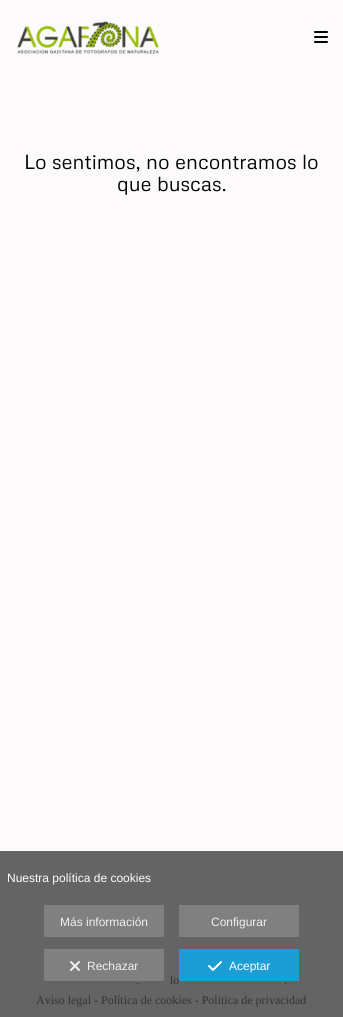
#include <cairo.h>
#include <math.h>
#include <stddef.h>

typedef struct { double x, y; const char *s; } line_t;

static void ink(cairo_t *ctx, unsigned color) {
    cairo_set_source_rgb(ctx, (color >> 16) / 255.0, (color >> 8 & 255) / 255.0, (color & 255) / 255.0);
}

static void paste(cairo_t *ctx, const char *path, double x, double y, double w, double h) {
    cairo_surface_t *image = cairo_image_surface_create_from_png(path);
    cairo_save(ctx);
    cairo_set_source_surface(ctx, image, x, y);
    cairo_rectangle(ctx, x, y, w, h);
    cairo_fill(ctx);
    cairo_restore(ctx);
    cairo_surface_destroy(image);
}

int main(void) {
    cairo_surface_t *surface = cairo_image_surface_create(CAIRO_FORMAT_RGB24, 343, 1017);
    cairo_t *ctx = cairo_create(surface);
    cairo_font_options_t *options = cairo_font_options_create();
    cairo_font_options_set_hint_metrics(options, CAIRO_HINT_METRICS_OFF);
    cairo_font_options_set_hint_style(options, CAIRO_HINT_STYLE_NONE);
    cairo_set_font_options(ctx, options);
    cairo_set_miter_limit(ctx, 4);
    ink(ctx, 0xFCFAFA);
    cairo_paint(ctx);
    ink(ctx, 0x656464);
    cairo_rectangle(ctx, 0, 851, 343, 166);
    cairo_fill(ctx);
    paste(ctx, "media/1.png", 17, 21, 142, 33);
    paste(ctx, "media/2.png", 314, 31, 14, 12);
    cairo_select_font_face(ctx, "Metrophobic", CAIRO_FONT_SLANT_NORMAL, CAIRO_FONT_WEIGHT_NORMAL);
    cairo_set_font_size(ctx, 20.25);
    ink(ctx, 0x030303);
    cairo_move_to(ctx, 24, 169);
    cairo_show_text(ctx, "Lo sentimos, no encontramos lo");
    cairo_move_to(ctx, 117, 191);
    cairo_show_text(ctx, "que buscas.");
    cairo_select_font_face(ctx, "Liberation Serif", CAIRO_FONT_SLANT_NORMAL, CAIRO_FONT_WEIGHT_NORMAL);
    cairo_set_font_size(ctx, 12);
    ink(ctx, 0x343333);
    {
        static const line_t items[] = {
            {136, 984, "."},
            {170, 984, "lo"},
            {284, 984, "."},
            {36, 1004, "Aviso legal - Política de cookies - Política de privacidad"},
        };
        for (size_t i = 0; i < sizeof items / sizeof *items; i++) {
            cairo_move_to(ctx, items[i].x, items[i].y);
            cairo_show_text(ctx, items[i].s);
        }
    }
    cairo_select_font_face(ctx, "Liberation Sans", CAIRO_FONT_SLANT_NORMAL, CAIRO_FONT_WEIGHT_NORMAL);
    ink(ctx, 0xFFFFFF);
    cairo_move_to(ctx, 7, 882);
    cairo_show_text(ctx, "Nuestra política de cookies");
    ink(ctx, 0x808080);
    cairo_rectangle(ctx, 44, 905, 120, 32);
    cairo_fill(ctx);
    ink(ctx, 0xF0F0F0);
    cairo_move_to(ctx, 60, 926);
    cairo_show_text(ctx, "Más información");
    ink(ctx, 0x808080);
    cairo_rectangle(ctx, 179, 905, 120, 32);
    cairo_fill(ctx);
    ink(ctx, 0xF0F0F0);
    cairo_move_to(ctx, 211, 926);
    cairo_show_text(ctx, "Configurar");
    ink(ctx, 0x808080);
    cairo_rectangle(ctx, 44, 949, 120, 32);
    cairo_fill(ctx);
    paste(ctx, "media/3.png", 70, 961, 10, 10);
    ink(ctx, 0xF0F0F0);
    cairo_move_to(ctx, 87, 970);
    cairo_show_text(ctx, "Rechazar");
    ink(ctx, 0x1A9ED5);
    cairo_rectangle(ctx, 179, 949, 120, 32);
    cairo_fill(ctx);
    paste(ctx, "media/4.png", 208, 961, 14, 10);
    ink(ctx, 0xFFFFFF);
    cairo_move_to(ctx, 229, 970);
    cairo_show_text(ctx, "Aceptar");
    cairo_surface_write_to_png(surface, "image.png");
    cairo_font_options_destroy(options);
    cairo_destroy(ctx);
    cairo_surface_destroy(surface);
    return 0;
}
